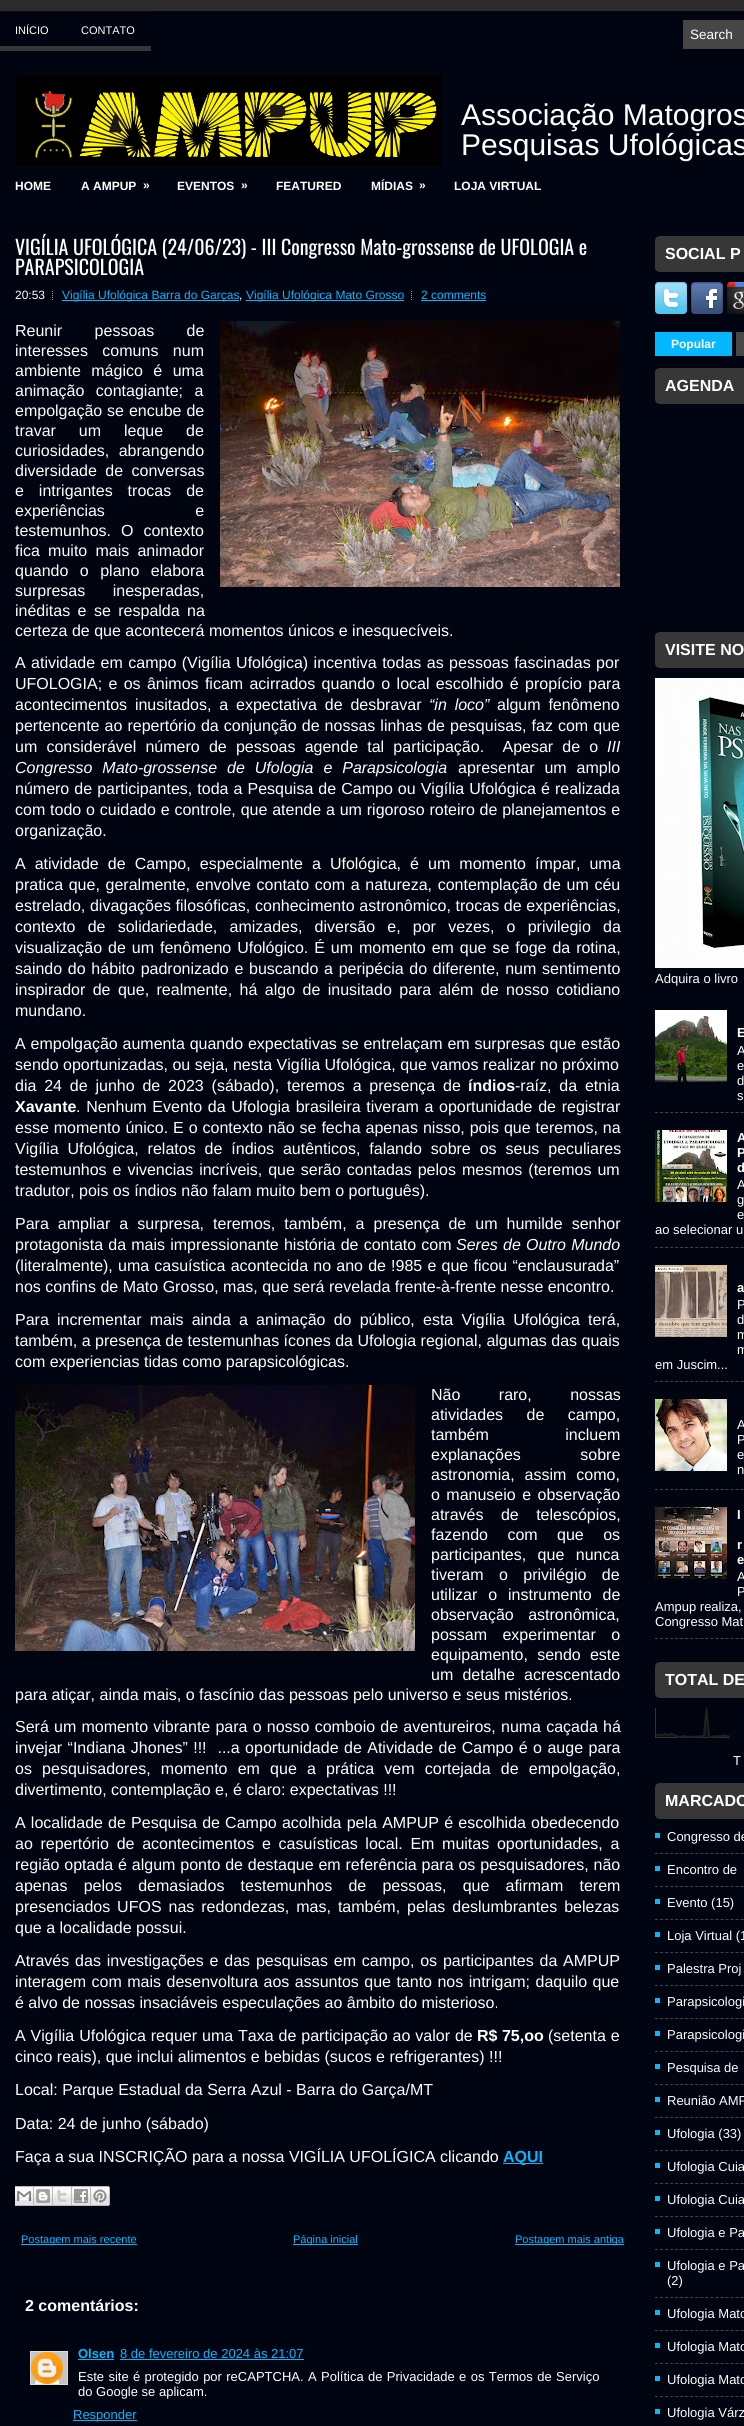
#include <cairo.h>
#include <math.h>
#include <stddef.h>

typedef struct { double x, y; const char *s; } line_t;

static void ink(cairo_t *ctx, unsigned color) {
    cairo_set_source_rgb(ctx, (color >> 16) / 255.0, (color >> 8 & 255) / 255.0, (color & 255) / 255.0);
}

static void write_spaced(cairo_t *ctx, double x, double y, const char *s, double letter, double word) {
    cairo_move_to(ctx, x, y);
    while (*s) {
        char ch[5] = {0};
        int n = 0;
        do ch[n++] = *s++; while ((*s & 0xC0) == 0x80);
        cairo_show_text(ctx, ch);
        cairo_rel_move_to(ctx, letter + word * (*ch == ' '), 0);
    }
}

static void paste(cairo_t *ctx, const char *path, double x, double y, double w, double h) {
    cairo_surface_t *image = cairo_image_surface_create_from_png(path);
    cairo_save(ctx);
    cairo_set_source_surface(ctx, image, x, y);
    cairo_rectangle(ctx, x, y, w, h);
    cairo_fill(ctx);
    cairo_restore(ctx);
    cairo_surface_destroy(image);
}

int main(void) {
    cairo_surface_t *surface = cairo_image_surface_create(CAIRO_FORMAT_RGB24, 744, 2426);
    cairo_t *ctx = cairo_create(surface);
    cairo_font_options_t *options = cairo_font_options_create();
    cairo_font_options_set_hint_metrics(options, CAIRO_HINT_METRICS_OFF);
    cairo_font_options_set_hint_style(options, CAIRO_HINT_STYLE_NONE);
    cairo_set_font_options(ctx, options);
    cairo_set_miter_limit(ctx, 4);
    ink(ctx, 0x2B2B2B);
    cairo_paint(ctx);
    ink(ctx, 0x010511);
    cairo_rectangle(ctx, 0, 11, 744, 2415);
    cairo_fill(ctx);
    paste(ctx, "media/1.png", 0, 11, 151, 40);
    cairo_select_font_face(ctx, "Liberation Sans", CAIRO_FONT_SLANT_NORMAL, CAIRO_FONT_WEIGHT_NORMAL);
    cairo_set_font_size(ctx, 11);
    ink(ctx, 0xFFFFFF);
    cairo_move_to(ctx, 15, 34);
    cairo_show_text(ctx, "INÍCIO");
    cairo_move_to(ctx, 81, 34);
    cairo_show_text(ctx, "CONTATO");
    ink(ctx, 0x474646);
    cairo_rectangle(ctx, 683.5, 20.5, 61, 28);
    cairo_fill_preserve(ctx);
    ink(ctx, 0x454343);
    cairo_set_line_width(ctx, 1);
    cairo_stroke(ctx);
    cairo_set_font_size(ctx, 13.5);
    ink(ctx, 0xFFFFFF);
    cairo_move_to(ctx, 690, 39);
    cairo_show_text(ctx, "Search");
    paste(ctx, "media/2.png", 15, 75, 427, 91);
    cairo_set_font_size(ctx, 30);
    cairo_move_to(ctx, 461, 125);
    cairo_show_text(ctx, "Associação Matogros");
    cairo_move_to(ctx, 461, 155);
    cairo_show_text(ctx, "Pesquisas Ufológicas");
    cairo_select_font_face(ctx, "Liberation Sans", CAIRO_FONT_SLANT_NORMAL, CAIRO_FONT_WEIGHT_BOLD);
    cairo_set_font_size(ctx, 12);
    {
        static const line_t items[] = {
            {15, 190, "HOME"},
            {81, 190, "A AMPUP"},
            {143, 189, "»"},
            {177, 190, "EVENTOS"},
            {241, 189, "»"},
            {276, 190, "FEATURED"},
            {371, 190, "MÍDIAS"},
            {419, 189, "»"},
            {454, 190, "LOJA VIRTUAL"},
        };
        for (size_t i = 0; i < sizeof items / sizeof *items; i++) {
            cairo_move_to(ctx, items[i].x, items[i].y);
            cairo_show_text(ctx, items[i].s);
        }
    }
    cairo_select_font_face(ctx, "Oswald", CAIRO_FONT_SLANT_NORMAL, CAIRO_FONT_WEIGHT_NORMAL);
    cairo_set_font_size(ctx, 20);
    cairo_move_to(ctx, 15, 255);
    cairo_show_text(ctx, "VIGÍLIA UFOLÓGICA (24/06/23) - III Congresso Mato-grossense de UFOLOGIA e");
    cairo_move_to(ctx, 15, 275);
    cairo_show_text(ctx, "PARAPSICOLOGIA");
    cairo_select_font_face(ctx, "Liberation Sans", CAIRO_FONT_SLANT_NORMAL, CAIRO_FONT_WEIGHT_NORMAL);
    cairo_set_font_size(ctx, 12);
    cairo_move_to(ctx, 15, 299);
    cairo_show_text(ctx, "20:53");
    paste(ctx, "media/3.png", 52, 291, 1, 9);
    ink(ctx, 0x05B7FF);
    cairo_rectangle(ctx, 62, 300, 177, 1);
    cairo_fill(ctx);
    cairo_move_to(ctx, 62, 299);
    cairo_show_text(ctx, "Vigília Ufológica Barra do Garças");
    ink(ctx, 0xFFFFFF);
    cairo_move_to(ctx, 239, 299);
    cairo_show_text(ctx, ",");
    ink(ctx, 0x05B7FF);
    cairo_rectangle(ctx, 246, 300, 158, 1);
    cairo_fill(ctx);
    cairo_move_to(ctx, 246, 299);
    cairo_show_text(ctx, "Vigília Ufológica Mato Grosso");
    paste(ctx, "media/3.png", 411, 291, 1, 9);
    cairo_move_to(ctx, 421, 299);
    cairo_show_text(ctx, "2 comments");
    cairo_rectangle(ctx, 421, 300, 65, 1);
    cairo_fill(ctx);
    paste(ctx, "media/4.png", 220, 321, 400, 266);
    cairo_set_font_size(ctx, 16);
    ink(ctx, 0xFFFFFF);
    write_spaced(ctx, 15, 336, "Reunir pessoas de", 0, 28);
    write_spaced(ctx, 15, 356, "interesses comuns num", 0, 10);
    write_spaced(ctx, 15, 376, "ambiente mágico é uma", 0, 6);
    write_spaced(ctx, 15, 396, "animação contagiante; a", 0, 7);
    write_spaced(ctx, 15, 416, "empolgação se encube de", 0, 0.5);
    write_spaced(ctx, 15, 436, "travar um leque de", 0, 18.5);
    write_spaced(ctx, 15, 456, "curiosidades, abrangendo", 0, 5);
    write_spaced(ctx, 15, 476, "diversidade de conversas", 0, 4);
    write_spaced(ctx, 15, 496, "e intrigantes trocas de", 0, 10.5);
    write_spaced(ctx, 15, 516, "experiências e", 0, 86);
    write_spaced(ctx, 15, 536, "testemunhos. O contexto", 0, 5.5);
    write_spaced(ctx, 15, 556, "fica muito mais animador", 0, 3.75);
    write_spaced(ctx, 15, 576, "quando o plano elabora", 0, 7);
    write_spaced(ctx, 15, 596, "surpresas inesperadas,", 0, 23);
    write_spaced(ctx, 15, 616, "inéditas e se respalda na", 0, 3);
    cairo_move_to(ctx, 15, 636);
    cairo_show_text(ctx, "certeza de que acontecerá momentos únicos e inesquecíveis.");
    write_spaced(ctx, 15, 668, "A atividade em campo (Vigília Ufológica) incentiva todas as pessoas fascinadas por", 0, 1);
    write_spaced(ctx, 15, 689, "UFOLOGIA; e os ânimos ficam acirrados quando o local escolhido é propício para", 0, 1.9);
    write_spaced(ctx, 15, 710, "acontecimentos inusitados, a expectativa de desbravar", 0, 3.4);
    cairo_select_font_face(ctx, "Liberation Sans", CAIRO_FONT_SLANT_ITALIC, CAIRO_FONT_WEIGHT_NORMAL);
    write_spaced(ctx, 429, 710, "“in loco”", 0, 3.4);
    cairo_select_font_face(ctx, "Liberation Sans", CAIRO_FONT_SLANT_NORMAL, CAIRO_FONT_WEIGHT_NORMAL);
    write_spaced(ctx, 497, 710, "algum fenômeno", 0, 3.4);
    write_spaced(ctx, 15, 731, "pertencente ao repertório da conjunção de nossas linhas de pesquisas, faz com que", 0, 0.6);
    write_spaced(ctx, 15, 752, "um considerável número de pessoas agende tal participação.  Apesar de o", 0, 4.75);
    cairo_select_font_face(ctx, "Liberation Sans", CAIRO_FONT_SLANT_ITALIC, CAIRO_FONT_WEIGHT_NORMAL);
    cairo_move_to(ctx, 607, 752);
    cairo_show_text(ctx, "III");
    write_spaced(ctx, 15, 773, "Congresso Mato-grossense de Ufologia e Parapsicologia", 0, 5.5);
    cairo_select_font_face(ctx, "Liberation Sans", CAIRO_FONT_SLANT_NORMAL, CAIRO_FONT_WEIGHT_NORMAL);
    write_spaced(ctx, 458, 773, "apresentar um amplo", 0, 5.5);
    write_spaced(ctx, 15, 794, "número de participantes, toda a Pesquisa de Campo ou Vigília Ufológica é realizada", 0, 0.6);
    write_spaced(ctx, 15, 815, "com todo o cuidado e controle, que atende a um rigoroso roteiro de planejamentos e", 0, 0.4);
    cairo_move_to(ctx, 15, 836);
    cairo_show_text(ctx, "organização.");
    write_spaced(ctx, 15, 869, "A atividade de Campo, especialmente a Ufológica, é um momento ímpar, uma", 0, 4.6);
    write_spaced(ctx, 15, 890, "pratica que, geralmente, envolve contato com a natureza, contemplação de um céu", 0, 1.25);
    write_spaced(ctx, 15, 911, "estrelado, divagações filosóficas, conhecimento astronômico, trocas de experiências,", 0, 0.25);
    write_spaced(ctx, 15, 932, "contexto de solidariedade, amizades, diversão e, por vezes, o privilegio da", 0, 7.75);
    write_spaced(ctx, 15, 953, "visualização de um fenômeno Ufológico. É um momento em que se foge da rotina,", 0, 1.5);
    write_spaced(ctx, 15, 974, "saindo do hábito padronizado e buscando a peripécia do diferente, num sentimento", 0, 1.25);
    write_spaced(ctx, 15, 995, "inspirador de que, realmente, há algo de inusitado para além de nosso cotidiano", 0, 3);
    cairo_move_to(ctx, 15, 1016);
    cairo_show_text(ctx, "mundano.");
    write_spaced(ctx, 15, 1049, "A empolgação aumenta quando expectativas se entrelaçam em surpresas que estão", 0, 0.4);
    cairo_move_to(ctx, 15, 1070);
    cairo_show_text(ctx, "sendo oportunizadas, ou seja, nesta Vigília Ufológica, que vamos realizar no próximo");
    write_spaced(ctx, 15, 1091, "dia 24 de junho de 2023 (sábado), teremos a presença de", 0, 3.4);
    cairo_select_font_face(ctx, "Liberation Sans", CAIRO_FONT_SLANT_NORMAL, CAIRO_FONT_WEIGHT_BOLD);
    cairo_move_to(ctx, 468, 1091);
    cairo_show_text(ctx, "índios");
    cairo_select_font_face(ctx, "Liberation Sans", CAIRO_FONT_SLANT_NORMAL, CAIRO_FONT_WEIGHT_NORMAL);
    write_spaced(ctx, 515, 1091, "-raíz, da etnia", 0, 3.4);
    cairo_select_font_face(ctx, "Liberation Sans", CAIRO_FONT_SLANT_NORMAL, CAIRO_FONT_WEIGHT_BOLD);
    cairo_move_to(ctx, 15, 1112);
    cairo_show_text(ctx, "Xavante");
    cairo_select_font_face(ctx, "Liberation Sans", CAIRO_FONT_SLANT_NORMAL, CAIRO_FONT_WEIGHT_NORMAL);
    write_spaced(ctx, 76, 1112, ". Nenhum Evento da Ufologia brasileira tiveram a oportunidade de registrar", 0, 1.25);
    write_spaced(ctx, 15, 1133, "esse momento único. E o contexto não se fecha apenas nisso, pois que teremos, na", 0, 0.5);
    write_spaced(ctx, 15, 1154, "Vigília Ufológica, relatos de índios autênticos, falando sobre os seus peculiares", 0, 4.5);
    write_spaced(ctx, 15, 1175, "testemunhos e vivencias incríveis, que serão contadas pelos mesmos (teremos um", 0, 1.5);
    cairo_move_to(ctx, 15, 1196);
    cairo_show_text(ctx, "tradutor, pois os índios não falam muito bem o português).");
    write_spaced(ctx, 15, 1229, "Para ampliar a surpresa, teremos, também, a presença de um humilde senhor", 0, 4.6);
    write_spaced(ctx, 15, 1250, "protagonista da mais impressionante história de contato com", 0, 0.75);
    cairo_select_font_face(ctx, "Liberation Sans", CAIRO_FONT_SLANT_ITALIC, CAIRO_FONT_WEIGHT_NORMAL);
    write_spaced(ctx, 456, 1250, "Seres de Outro Mundo", 0, 0.75);
    cairo_select_font_face(ctx, "Liberation Sans", CAIRO_FONT_SLANT_NORMAL, CAIRO_FONT_WEIGHT_NORMAL);
    write_spaced(ctx, 15, 1271, "(literalmente), uma casuística acontecida no ano de !985 e que ficou “enclausurada”", 0, 0.75);
    cairo_move_to(ctx, 15, 1292);
    cairo_show_text(ctx, "nos confins de Mato Grosso, mas, que será revelada frente-à-frente nesse encontro.");
    write_spaced(ctx, 15, 1325, "Para incrementar mais ainda a animação do público, esta Vigília Ufológica terá,", 0, 3.75);
    cairo_move_to(ctx, 15, 1346);
    cairo_show_text(ctx, "também, a presença de testemunhas ícones da Ufologia regional, algumas das quais");
    cairo_move_to(ctx, 15, 1367);
    cairo_show_text(ctx, "com experiencias tidas como parapsicológicas.");
    paste(ctx, "media/5.png", 15, 1385, 400, 266);
    write_spaced(ctx, 431, 1400, "Não raro, nossas", 0, 34);
    write_spaced(ctx, 431, 1420, "atividades de campo,", 0, 19);
    write_spaced(ctx, 431, 1440, "também incluem", 0, 72);
    write_spaced(ctx, 431, 1460, "explanações sobre", 0, 55);
    write_spaced(ctx, 431, 1480, "astronomia, assim como,", 0, 5.5);
    write_spaced(ctx, 431, 1500, "o manuseio e observação", 0, 2);
    write_spaced(ctx, 431, 1520, "através de telescópios,", 0, 13);
    write_spaced(ctx, 431, 1540, "fazendo com que os", 0, 15);
    write_spaced(ctx, 431, 1560, "participantes, que nunca", 0, 7);
    write_spaced(ctx, 431, 1580, "tiveram o privilégio de", 0, 11);
    write_spaced(ctx, 431, 1600, "utilizar o instrumento de", 0, 6.5);
    write_spaced(ctx, 431, 1620, "observação astronômica,", 0, 10);
    write_spaced(ctx, 431, 1640, "possam experimentar o", 0, 11);
    write_spaced(ctx, 431, 1660, "equipamento, sendo este", 0, 4.75);
    write_spaced(ctx, 431, 1680, "um detalhe acrescentado", 0, 4.75);
    cairo_move_to(ctx, 15, 1700);
    cairo_show_text(ctx, "para atiçar, ainda mais, o fascínio das pessoas pelo universo e seus mistérios.");
    write_spaced(ctx, 15, 1732, "Será um momento vibrante para o nosso comboio de aventureiros, numa caçada há", 0, 0.75);
    write_spaced(ctx, 15, 1753, "invejar “Indiana Jhones” !!!  ...a oportunidade de Atividade de Campo é o auge para", 0, 1);
    write_spaced(ctx, 15, 1774, "os pesquisadores, momento em que a prática vem cortejada de empolgação,", 0, 5.75);
    cairo_move_to(ctx, 15, 1795);
    cairo_show_text(ctx, "divertimento, contemplação e, é claro: expectativas !!!");
    write_spaced(ctx, 15, 1828, "A localidade de Pesquisa de Campo acolhida pela AMPUP é escolhida obedecendo", 0, 0.75);
    write_spaced(ctx, 15, 1849, "ao repertório de acontecimentos e casuísticas local. Em muitas oportunidades, a", 0, 3.25);
    write_spaced(ctx, 15, 1870, "região optada é algum ponto de destaque em referência para os pesquisadores, não", 0, 0.4);
    write_spaced(ctx, 15, 1891, "apenas pelos demasiados testemunhos de pessoas, que afirmam terem", 0, 11.75);
    write_spaced(ctx, 15, 1912, "presenciados UFOS nas redondezas, mas, também, pelas deslumbrantes belezas", 0, 2.5);
    cairo_move_to(ctx, 15, 1933);
    cairo_show_text(ctx, "que a localidade possui.");
    write_spaced(ctx, 15, 1966, "Através das investigações e das pesquisas em campo, os participantes da AMPUP", 0, 1.4);
    write_spaced(ctx, 15, 1987, "interagem com mais desenvoltura aos assuntos que tanto nos intrigam; daquilo que", 0, 1);
    cairo_move_to(ctx, 15, 2008);
    cairo_show_text(ctx, "é alvo de nossas insaciáveis especulações ao âmbito do misterioso.");
    write_spaced(ctx, 15, 2041, "A Vigília Ufológica requer uma Taxa de participação ao valor de", 0, 0.5);
    cairo_select_font_face(ctx, "Liberation Sans", CAIRO_FONT_SLANT_NORMAL, CAIRO_FONT_WEIGHT_BOLD);
    cairo_move_to(ctx, 477, 2041);
    cairo_show_text(ctx, "R$ 75,oo");
    cairo_select_font_face(ctx, "Liberation Sans", CAIRO_FONT_SLANT_NORMAL, CAIRO_FONT_WEIGHT_NORMAL);
    write_spaced(ctx, 548, 2041, "(setenta e", 0, 0.5);
    {
        static const line_t items[] = {
            {15, 2062, "cinco reais), que inclui alimentos e bebidas (sucos e refrigerantes) !!!"},
            {15, 2095, "Local: Parque Estadual da Serra Azul - Barra do Garça/MT"},
            {15, 2129, "Data: 24 de junho (sábado)"},
            {15, 2162, "Faça a sua INSCRIÇÃO para a nossa VIGÍLIA UFOLÍGICA clicando"},
        };
        for (size_t i = 0; i < sizeof items / sizeof *items; i++) {
            cairo_move_to(ctx, items[i].x, items[i].y);
            cairo_show_text(ctx, items[i].s);
        }
    }
    ink(ctx, 0x05B7FF);
    cairo_rectangle(ctx, 503, 2163, 40, 1);
    cairo_fill(ctx);
    cairo_select_font_face(ctx, "Liberation Sans", CAIRO_FONT_SLANT_NORMAL, CAIRO_FONT_WEIGHT_BOLD);
    cairo_move_to(ctx, 503, 2162);
    cairo_show_text(ctx, "AQUI");
    paste(ctx, "media/6.png", 15, 2186, 19, 20);
    paste(ctx, "media/7.png", 34, 2186, 19, 20);
    paste(ctx, "media/8.png", 53, 2186, 19, 20);
    paste(ctx, "media/9.png", 72, 2186, 19, 20);
    paste(ctx, "media/10.png", 91, 2186, 19, 20);
    cairo_rectangle(ctx, 21, 2244, 116, 1);
    cairo_fill(ctx);
    cairo_select_font_face(ctx, "Liberation Sans", CAIRO_FONT_SLANT_NORMAL, CAIRO_FONT_WEIGHT_NORMAL);
    cairo_set_font_size(ctx, 11);
    cairo_move_to(ctx, 21, 2243);
    cairo_show_text(ctx, "Postagem mais recente");
    cairo_rectangle(ctx, 293, 2244, 65, 1);
    cairo_fill(ctx);
    cairo_move_to(ctx, 293, 2243);
    cairo_show_text(ctx, "Página inicial");
    cairo_rectangle(ctx, 515, 2244, 109, 1);
    cairo_fill(ctx);
    cairo_move_to(ctx, 515, 2243);
    cairo_show_text(ctx, "Postagem mais antiga");
    cairo_select_font_face(ctx, "Liberation Sans", CAIRO_FONT_SLANT_NORMAL, CAIRO_FONT_WEIGHT_BOLD);
    cairo_set_font_size(ctx, 16);
    ink(ctx, 0xFFFFFF);
    cairo_move_to(ctx, 25, 2311);
    cairo_show_text(ctx, "2 comentários:");
    paste(ctx, "media/11.png", 31, 2352, 36, 32);
    cairo_rectangle(ctx, 30.5, 2351.5, 37, 33);
    ink(ctx, 0xDDDDDD);
    cairo_stroke(ctx);
    paste(ctx, "media/12.png", 31, 2352, 32, 32);
    cairo_set_font_size(ctx, 13);
    ink(ctx, 0x05B7FF);
    cairo_move_to(ctx, 78, 2358);
    cairo_show_text(ctx, "Olsen");
    cairo_rectangle(ctx, 78, 2359, 36, 1);
    cairo_fill(ctx);
    cairo_select_font_face(ctx, "Liberation Sans", CAIRO_FONT_SLANT_NORMAL, CAIRO_FONT_WEIGHT_NORMAL);
    cairo_move_to(ctx, 120, 2358);
    cairo_show_text(ctx, "8 de fevereiro de 2024 às 21:07");
    cairo_rectangle(ctx, 120, 2359, 184, 1);
    cairo_fill(ctx);
    ink(ctx, 0xFFFFFF);
    write_spaced(ctx, 78, 2381, "Este site é protegido por reCAPTCHA. A Política de Privacidade e os Termos de Serviço", 0, 0.75);
    cairo_move_to(ctx, 78, 2396);
    cairo_show_text(ctx, "do Google se aplicam.");
    ink(ctx, 0x05B7FF);
    cairo_rectangle(ctx, 73, 2420, 64, 1);
    cairo_fill(ctx);
    cairo_move_to(ctx, 73, 2419);
    cairo_show_text(ctx, "Responder");
    ink(ctx, 0x373737);
    cairo_new_path(ctx);
    cairo_move_to(ctx, 660, 236);
    cairo_line_to(ctx, 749, 236);
    cairo_line_to(ctx, 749, 272);
    cairo_line_to(ctx, 660, 272);
    cairo_curve_to(ctx, 657, 272, 655, 270, 655, 267);
    cairo_line_to(ctx, 655, 241);
    cairo_curve_to(ctx, 655, 238, 657, 236, 660, 236);
    cairo_close_path(ctx);
    cairo_fill(ctx);
    cairo_select_font_face(ctx, "Liberation Sans", CAIRO_FONT_SLANT_NORMAL, CAIRO_FONT_WEIGHT_BOLD);
    cairo_set_font_size(ctx, 16);
    ink(ctx, 0xFFFFFF);
    cairo_move_to(ctx, 665, 259);
    cairo_show_text(ctx, "SOCIAL P");
    paste(ctx, "media/13.png", 655, 282, 32, 32);
    paste(ctx, "media/14.png", 691, 282, 32, 32);
    paste(ctx, "media/15.png", 727, 282, 17, 32);
    ink(ctx, 0x05B7FF);
    cairo_rectangle(ctx, 655, 332, 77, 24);
    cairo_fill(ctx);
    cairo_set_font_size(ctx, 12);
    ink(ctx, 0xFFFFFF);
    cairo_move_to(ctx, 671, 348);
    cairo_show_text(ctx, "Popular");
    ink(ctx, 0x474747);
    cairo_rectangle(ctx, 736, 332, 8, 24);
    cairo_fill(ctx);
    ink(ctx, 0x373737);
    cairo_new_path(ctx);
    cairo_move_to(ctx, 660, 368);
    cairo_line_to(ctx, 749, 368);
    cairo_line_to(ctx, 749, 404);
    cairo_line_to(ctx, 660, 404);
    cairo_curve_to(ctx, 657, 404, 655, 402, 655, 399);
    cairo_line_to(ctx, 655, 373);
    cairo_curve_to(ctx, 655, 370, 657, 368, 660, 368);
    cairo_close_path(ctx);
    cairo_fill(ctx);
    cairo_set_font_size(ctx, 16);
    ink(ctx, 0xFFFFFF);
    cairo_move_to(ctx, 665, 391);
    cairo_show_text(ctx, "AGENDA");
    ink(ctx, 0x373737);
    cairo_new_path(ctx);
    cairo_move_to(ctx, 660, 632);
    cairo_line_to(ctx, 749, 632);
    cairo_line_to(ctx, 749, 668);
    cairo_line_to(ctx, 660, 668);
    cairo_curve_to(ctx, 657, 668, 655, 666, 655, 663);
    cairo_line_to(ctx, 655, 637);
    cairo_curve_to(ctx, 655, 634, 657, 632, 660, 632);
    cairo_close_path(ctx);
    cairo_fill(ctx);
    ink(ctx, 0xFFFFFF);
    cairo_move_to(ctx, 665, 655);
    cairo_show_text(ctx, "VISITE NO");
    paste(ctx, "media/16.png", 655, 678, 89, 290);
    cairo_select_font_face(ctx, "Liberation Sans", CAIRO_FONT_SLANT_NORMAL, CAIRO_FONT_WEIGHT_NORMAL);
    cairo_set_font_size(ctx, 13);
    cairo_move_to(ctx, 655, 983);
    cairo_show_text(ctx, "Adquira o livro");
    cairo_new_path(ctx);
    cairo_move_to(ctx, 655, 1112.5);
    cairo_line_to(ctx, 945, 1112.5);
    ink(ctx, 0x454343);
    cairo_set_dash(ctx, (double[]){3, 2.04}, 2, 0);
    cairo_stroke(ctx);
    paste(ctx, "media/17.png", 655, 1010, 72, 72);
    cairo_select_font_face(ctx, "Liberation Sans", CAIRO_FONT_SLANT_NORMAL, CAIRO_FONT_WEIGHT_BOLD);
    ink(ctx, 0xFFFFFF);
    cairo_move_to(ctx, 737, 1037);
    cairo_show_text(ctx, "E");
    cairo_select_font_face(ctx, "Liberation Sans", CAIRO_FONT_SLANT_NORMAL, CAIRO_FONT_WEIGHT_NORMAL);
    {
        static const line_t items[] = {
            {737, 1055, "A"},
            {737, 1070, "e"},
            {737, 1085, "d"},
            {737, 1100, "s"},
        };
        for (size_t i = 0; i < sizeof items / sizeof *items; i++) {
            cairo_move_to(ctx, items[i].x, items[i].y);
            cairo_show_text(ctx, items[i].s);
        }
    }
    cairo_new_path(ctx);
    cairo_move_to(ctx, 655, 1247.5);
    cairo_line_to(ctx, 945, 1247.5);
    ink(ctx, 0x454343);
    cairo_stroke(ctx);
    paste(ctx, "media/18.png", 655, 1130, 72, 72);
    cairo_select_font_face(ctx, "Liberation Sans", CAIRO_FONT_SLANT_NORMAL, CAIRO_FONT_WEIGHT_BOLD);
    ink(ctx, 0xFFFFFF);
    {
        static const line_t items[] = {
            {737, 1142, "A"},
            {737, 1157, "P"},
            {737, 1172, "d"},
        };
        for (size_t i = 0; i < sizeof items / sizeof *items; i++) {
            cairo_move_to(ctx, items[i].x, items[i].y);
            cairo_show_text(ctx, items[i].s);
        }
    }
    cairo_select_font_face(ctx, "Liberation Sans", CAIRO_FONT_SLANT_NORMAL, CAIRO_FONT_WEIGHT_NORMAL);
    {
        static const line_t items[] = {
            {737, 1189, "A"},
            {737, 1204, "g"},
            {737, 1219, "e"},
            {655, 1234, "ao selecionar u"},
        };
        for (size_t i = 0; i < sizeof items / sizeof *items; i++) {
            cairo_move_to(ctx, items[i].x, items[i].y);
            cairo_show_text(ctx, items[i].s);
        }
    }
    cairo_new_path(ctx);
    cairo_move_to(ctx, 655, 1381.5);
    cairo_line_to(ctx, 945, 1381.5);
    ink(ctx, 0x454343);
    cairo_stroke(ctx);
    paste(ctx, "media/19.png", 655, 1265, 72, 72);
    cairo_select_font_face(ctx, "Liberation Sans", CAIRO_FONT_SLANT_NORMAL, CAIRO_FONT_WEIGHT_BOLD);
    ink(ctx, 0xFFFFFF);
    cairo_move_to(ctx, 737, 1292);
    cairo_show_text(ctx, "a");
    cairo_select_font_face(ctx, "Liberation Sans", CAIRO_FONT_SLANT_NORMAL, CAIRO_FONT_WEIGHT_NORMAL);
    {
        static const line_t items[] = {
            {737, 1309, "P"},
            {737, 1324, "d"},
            {737, 1339, "m"},
            {737, 1354, "m"},
            {655, 1369, "em Juscim..."},
        };
        for (size_t i = 0; i < sizeof items / sizeof *items; i++) {
            cairo_move_to(ctx, items[i].x, items[i].y);
            cairo_show_text(ctx, items[i].s);
        }
    }
    cairo_new_path(ctx);
    cairo_move_to(ctx, 655, 1489.5);
    cairo_line_to(ctx, 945, 1489.5);
    ink(ctx, 0x454343);
    cairo_stroke(ctx);
    paste(ctx, "media/20.png", 655, 1399, 72, 72);
    ink(ctx, 0xFFFFFF);
    {
        static const line_t items[] = {
            {737, 1429, "A"},
            {737, 1444, "P"},
            {737, 1459, "e"},
            {737, 1474, "n"},
        };
        for (size_t i = 0; i < sizeof items / sizeof *items; i++) {
            cairo_move_to(ctx, items[i].x, items[i].y);
            cairo_show_text(ctx, items[i].s);
        }
    }
    cairo_new_path(ctx);
    cairo_move_to(ctx, 655, 1638.5);
    cairo_line_to(ctx, 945, 1638.5);
    ink(ctx, 0x454343);
    cairo_stroke(ctx);
    paste(ctx, "media/21.png", 655, 1507, 72, 72);
    cairo_select_font_face(ctx, "Liberation Sans", CAIRO_FONT_SLANT_NORMAL, CAIRO_FONT_WEIGHT_BOLD);
    ink(ctx, 0xFFFFFF);
    {
        static const line_t items[] = {
            {737, 1519, "I"},
            {737, 1549, "r"},
            {737, 1564, "e"},
        };
        for (size_t i = 0; i < sizeof items / sizeof *items; i++) {
            cairo_move_to(ctx, items[i].x, items[i].y);
            cairo_show_text(ctx, items[i].s);
        }
    }
    cairo_select_font_face(ctx, "Liberation Sans", CAIRO_FONT_SLANT_NORMAL, CAIRO_FONT_WEIGHT_NORMAL);
    {
        static const line_t items[] = {
            {737, 1581, "A"},
            {737, 1596, "P"},
            {655, 1611, "Ampup realiza,"},
            {655, 1626, "Congresso Mat"},
        };
        for (size_t i = 0; i < sizeof items / sizeof *items; i++) {
            cairo_move_to(ctx, items[i].x, items[i].y);
            cairo_show_text(ctx, items[i].s);
        }
    }
    ink(ctx, 0x373737);
    cairo_new_path(ctx);
    cairo_move_to(ctx, 660, 1662);
    cairo_line_to(ctx, 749, 1662);
    cairo_line_to(ctx, 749, 1698);
    cairo_line_to(ctx, 660, 1698);
    cairo_curve_to(ctx, 657, 1698, 655, 1696, 655, 1693);
    cairo_line_to(ctx, 655, 1667);
    cairo_curve_to(ctx, 655, 1664, 657, 1662, 660, 1662);
    cairo_close_path(ctx);
    cairo_fill(ctx);
    cairo_select_font_face(ctx, "Liberation Sans", CAIRO_FONT_SLANT_NORMAL, CAIRO_FONT_WEIGHT_BOLD);
    cairo_set_font_size(ctx, 16);
    ink(ctx, 0xFFFFFF);
    cairo_move_to(ctx, 665, 1685);
    cairo_show_text(ctx, "TOTAL DE");
    paste(ctx, "media/22.png", 655, 1708, 75, 30);
    cairo_select_font_face(ctx, "Liberation Sans", CAIRO_FONT_SLANT_NORMAL, CAIRO_FONT_WEIGHT_NORMAL);
    cairo_set_font_size(ctx, 13);
    cairo_move_to(ctx, 733, 1765);
    cairo_show_text(ctx, "T");
    ink(ctx, 0x373737);
    cairo_new_path(ctx);
    cairo_move_to(ctx, 660, 1783);
    cairo_line_to(ctx, 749, 1783);
    cairo_line_to(ctx, 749, 1819);
    cairo_line_to(ctx, 660, 1819);
    cairo_curve_to(ctx, 657, 1819, 655, 1817, 655, 1814);
    cairo_line_to(ctx, 655, 1788);
    cairo_curve_to(ctx, 655, 1785, 657, 1783, 660, 1783);
    cairo_close_path(ctx);
    cairo_fill(ctx);
    cairo_select_font_face(ctx, "Liberation Sans", CAIRO_FONT_SLANT_NORMAL, CAIRO_FONT_WEIGHT_BOLD);
    cairo_set_font_size(ctx, 16);
    ink(ctx, 0xFFFFFF);
    cairo_move_to(ctx, 665, 1806);
    cairo_show_text(ctx, "MARCADO");
    ink(ctx, 0x05B7FF);
    cairo_rectangle(ctx, 655, 1833, 5, 5);
    cairo_fill(ctx);
    cairo_new_path(ctx);
    cairo_move_to(ctx, 655, 1853.5);
    cairo_line_to(ctx, 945, 1853.5);
    ink(ctx, 0x454343);
    cairo_stroke(ctx);
    cairo_select_font_face(ctx, "Liberation Sans", CAIRO_FONT_SLANT_NORMAL, CAIRO_FONT_WEIGHT_NORMAL);
    cairo_set_font_size(ctx, 13);
    ink(ctx, 0xFFFFFF);
    cairo_move_to(ctx, 667, 1841);
    cairo_show_text(ctx, "Congresso de");
    ink(ctx, 0x05B7FF);
    cairo_rectangle(ctx, 655, 1866, 5, 5);
    cairo_fill(ctx);
    cairo_new_path(ctx);
    cairo_move_to(ctx, 655, 1886.5);
    cairo_line_to(ctx, 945, 1886.5);
    ink(ctx, 0x454343);
    cairo_stroke(ctx);
    ink(ctx, 0xFFFFFF);
    cairo_move_to(ctx, 667, 1874);
    cairo_show_text(ctx, "Encontro de");
    ink(ctx, 0x05B7FF);
    cairo_rectangle(ctx, 655, 1899, 5, 5);
    cairo_fill(ctx);
    cairo_new_path(ctx);
    cairo_move_to(ctx, 655, 1919.5);
    cairo_line_to(ctx, 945, 1919.5);
    ink(ctx, 0x454343);
    cairo_stroke(ctx);
    ink(ctx, 0xFFFFFF);
    cairo_move_to(ctx, 667, 1907);
    cairo_show_text(ctx, "Evento (15)");
    ink(ctx, 0x05B7FF);
    cairo_rectangle(ctx, 655, 1932, 5, 5);
    cairo_fill(ctx);
    cairo_new_path(ctx);
    cairo_move_to(ctx, 655, 1952.5);
    cairo_line_to(ctx, 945, 1952.5);
    ink(ctx, 0x454343);
    cairo_stroke(ctx);
    ink(ctx, 0xFFFFFF);
    cairo_move_to(ctx, 667, 1940);
    cairo_show_text(ctx, "Loja Virtual (1");
    ink(ctx, 0x05B7FF);
    cairo_rectangle(ctx, 655, 1965, 5, 5);
    cairo_fill(ctx);
    cairo_new_path(ctx);
    cairo_move_to(ctx, 655, 1985.5);
    cairo_line_to(ctx, 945, 1985.5);
    ink(ctx, 0x454343);
    cairo_stroke(ctx);
    ink(ctx, 0xFFFFFF);
    cairo_move_to(ctx, 667, 1973);
    cairo_show_text(ctx, "Palestra Proj");
    ink(ctx, 0x05B7FF);
    cairo_rectangle(ctx, 655, 1998, 5, 5);
    cairo_fill(ctx);
    cairo_new_path(ctx);
    cairo_move_to(ctx, 655, 2018.5);
    cairo_line_to(ctx, 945, 2018.5);
    ink(ctx, 0x454343);
    cairo_stroke(ctx);
    ink(ctx, 0xFFFFFF);
    cairo_move_to(ctx, 667, 2006);
    cairo_show_text(ctx, "Parapsicologi");
    ink(ctx, 0x05B7FF);
    cairo_rectangle(ctx, 655, 2031, 5, 5);
    cairo_fill(ctx);
    cairo_new_path(ctx);
    cairo_move_to(ctx, 655, 2051.5);
    cairo_line_to(ctx, 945, 2051.5);
    ink(ctx, 0x454343);
    cairo_stroke(ctx);
    ink(ctx, 0xFFFFFF);
    cairo_move_to(ctx, 667, 2039);
    cairo_show_text(ctx, "Parapsicologi");
    ink(ctx, 0x05B7FF);
    cairo_rectangle(ctx, 655, 2064, 5, 5);
    cairo_fill(ctx);
    cairo_new_path(ctx);
    cairo_move_to(ctx, 655, 2084.5);
    cairo_line_to(ctx, 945, 2084.5);
    ink(ctx, 0x454343);
    cairo_stroke(ctx);
    ink(ctx, 0xFFFFFF);
    cairo_move_to(ctx, 667, 2072);
    cairo_show_text(ctx, "Pesquisa de");
    ink(ctx, 0x05B7FF);
    cairo_rectangle(ctx, 655, 2097, 5, 5);
    cairo_fill(ctx);
    cairo_new_path(ctx);
    cairo_move_to(ctx, 655, 2117.5);
    cairo_line_to(ctx, 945, 2117.5);
    ink(ctx, 0x454343);
    cairo_stroke(ctx);
    ink(ctx, 0xFFFFFF);
    cairo_move_to(ctx, 667, 2105);
    cairo_show_text(ctx, "Reunião AMP");
    ink(ctx, 0x05B7FF);
    cairo_rectangle(ctx, 655, 2130, 5, 5);
    cairo_fill(ctx);
    cairo_new_path(ctx);
    cairo_move_to(ctx, 655, 2150.5);
    cairo_line_to(ctx, 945, 2150.5);
    ink(ctx, 0x454343);
    cairo_stroke(ctx);
    ink(ctx, 0xFFFFFF);
    cairo_move_to(ctx, 667, 2138);
    cairo_show_text(ctx, "Ufologia (33)");
    ink(ctx, 0x05B7FF);
    cairo_rectangle(ctx, 655, 2163, 5, 5);
    cairo_fill(ctx);
    cairo_new_path(ctx);
    cairo_move_to(ctx, 655, 2183.5);
    cairo_line_to(ctx, 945, 2183.5);
    ink(ctx, 0x454343);
    cairo_stroke(ctx);
    ink(ctx, 0xFFFFFF);
    cairo_move_to(ctx, 667, 2171);
    cairo_show_text(ctx, "Ufologia Cuia");
    ink(ctx, 0x05B7FF);
    cairo_rectangle(ctx, 655, 2196, 5, 5);
    cairo_fill(ctx);
    cairo_new_path(ctx);
    cairo_move_to(ctx, 655, 2216.5);
    cairo_line_to(ctx, 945, 2216.5);
    ink(ctx, 0x454343);
    cairo_stroke(ctx);
    ink(ctx, 0xFFFFFF);
    cairo_move_to(ctx, 667, 2204);
    cairo_show_text(ctx, "Ufologia Cuia");
    ink(ctx, 0x05B7FF);
    cairo_rectangle(ctx, 655, 2229, 5, 5);
    cairo_fill(ctx);
    cairo_new_path(ctx);
    cairo_move_to(ctx, 655, 2249.5);
    cairo_line_to(ctx, 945, 2249.5);
    ink(ctx, 0x454343);
    cairo_stroke(ctx);
    ink(ctx, 0xFFFFFF);
    cairo_move_to(ctx, 667, 2237);
    cairo_show_text(ctx, "Ufologia e Pa");
    ink(ctx, 0x05B7FF);
    cairo_rectangle(ctx, 655, 2262, 5, 5);
    cairo_fill(ctx);
    cairo_new_path(ctx);
    cairo_move_to(ctx, 655, 2297.5);
    cairo_line_to(ctx, 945, 2297.5);
    ink(ctx, 0x454343);
    cairo_stroke(ctx);
    ink(ctx, 0xFFFFFF);
    cairo_move_to(ctx, 667, 2270);
    cairo_show_text(ctx, "Ufologia e Pa");
    cairo_move_to(ctx, 667, 2285);
    cairo_show_text(ctx, "(2)");
    ink(ctx, 0x05B7FF);
    cairo_rectangle(ctx, 655, 2310, 5, 5);
    cairo_fill(ctx);
    cairo_new_path(ctx);
    cairo_move_to(ctx, 655, 2330.5);
    cairo_line_to(ctx, 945, 2330.5);
    ink(ctx, 0x454343);
    cairo_stroke(ctx);
    ink(ctx, 0xFFFFFF);
    cairo_move_to(ctx, 667, 2318);
    cairo_show_text(ctx, "Ufologia Mato");
    ink(ctx, 0x05B7FF);
    cairo_rectangle(ctx, 655, 2343, 5, 5);
    cairo_fill(ctx);
    cairo_new_path(ctx);
    cairo_move_to(ctx, 655, 2363.5);
    cairo_line_to(ctx, 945, 2363.5);
    ink(ctx, 0x454343);
    cairo_stroke(ctx);
    ink(ctx, 0xFFFFFF);
    cairo_move_to(ctx, 667, 2351);
    cairo_show_text(ctx, "Ufologia Mato");
    ink(ctx, 0x05B7FF);
    cairo_rectangle(ctx, 655, 2376, 5, 5);
    cairo_fill(ctx);
    cairo_new_path(ctx);
    cairo_move_to(ctx, 655, 2396.5);
    cairo_line_to(ctx, 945, 2396.5);
    ink(ctx, 0x454343);
    cairo_stroke(ctx);
    ink(ctx, 0xFFFFFF);
    cairo_move_to(ctx, 667, 2384);
    cairo_show_text(ctx, "Ufologia Mato");
    ink(ctx, 0x05B7FF);
    cairo_rectangle(ctx, 655, 2409, 5, 5);
    cairo_fill(ctx);
    ink(ctx, 0xFFFFFF);
    cairo_move_to(ctx, 667, 2417);
    cairo_show_text(ctx, "Ufologia Várz");
    cairo_surface_write_to_png(surface, "image.png");
    cairo_font_options_destroy(options);
    cairo_destroy(ctx);
    cairo_surface_destroy(surface);
    return 0;
}
